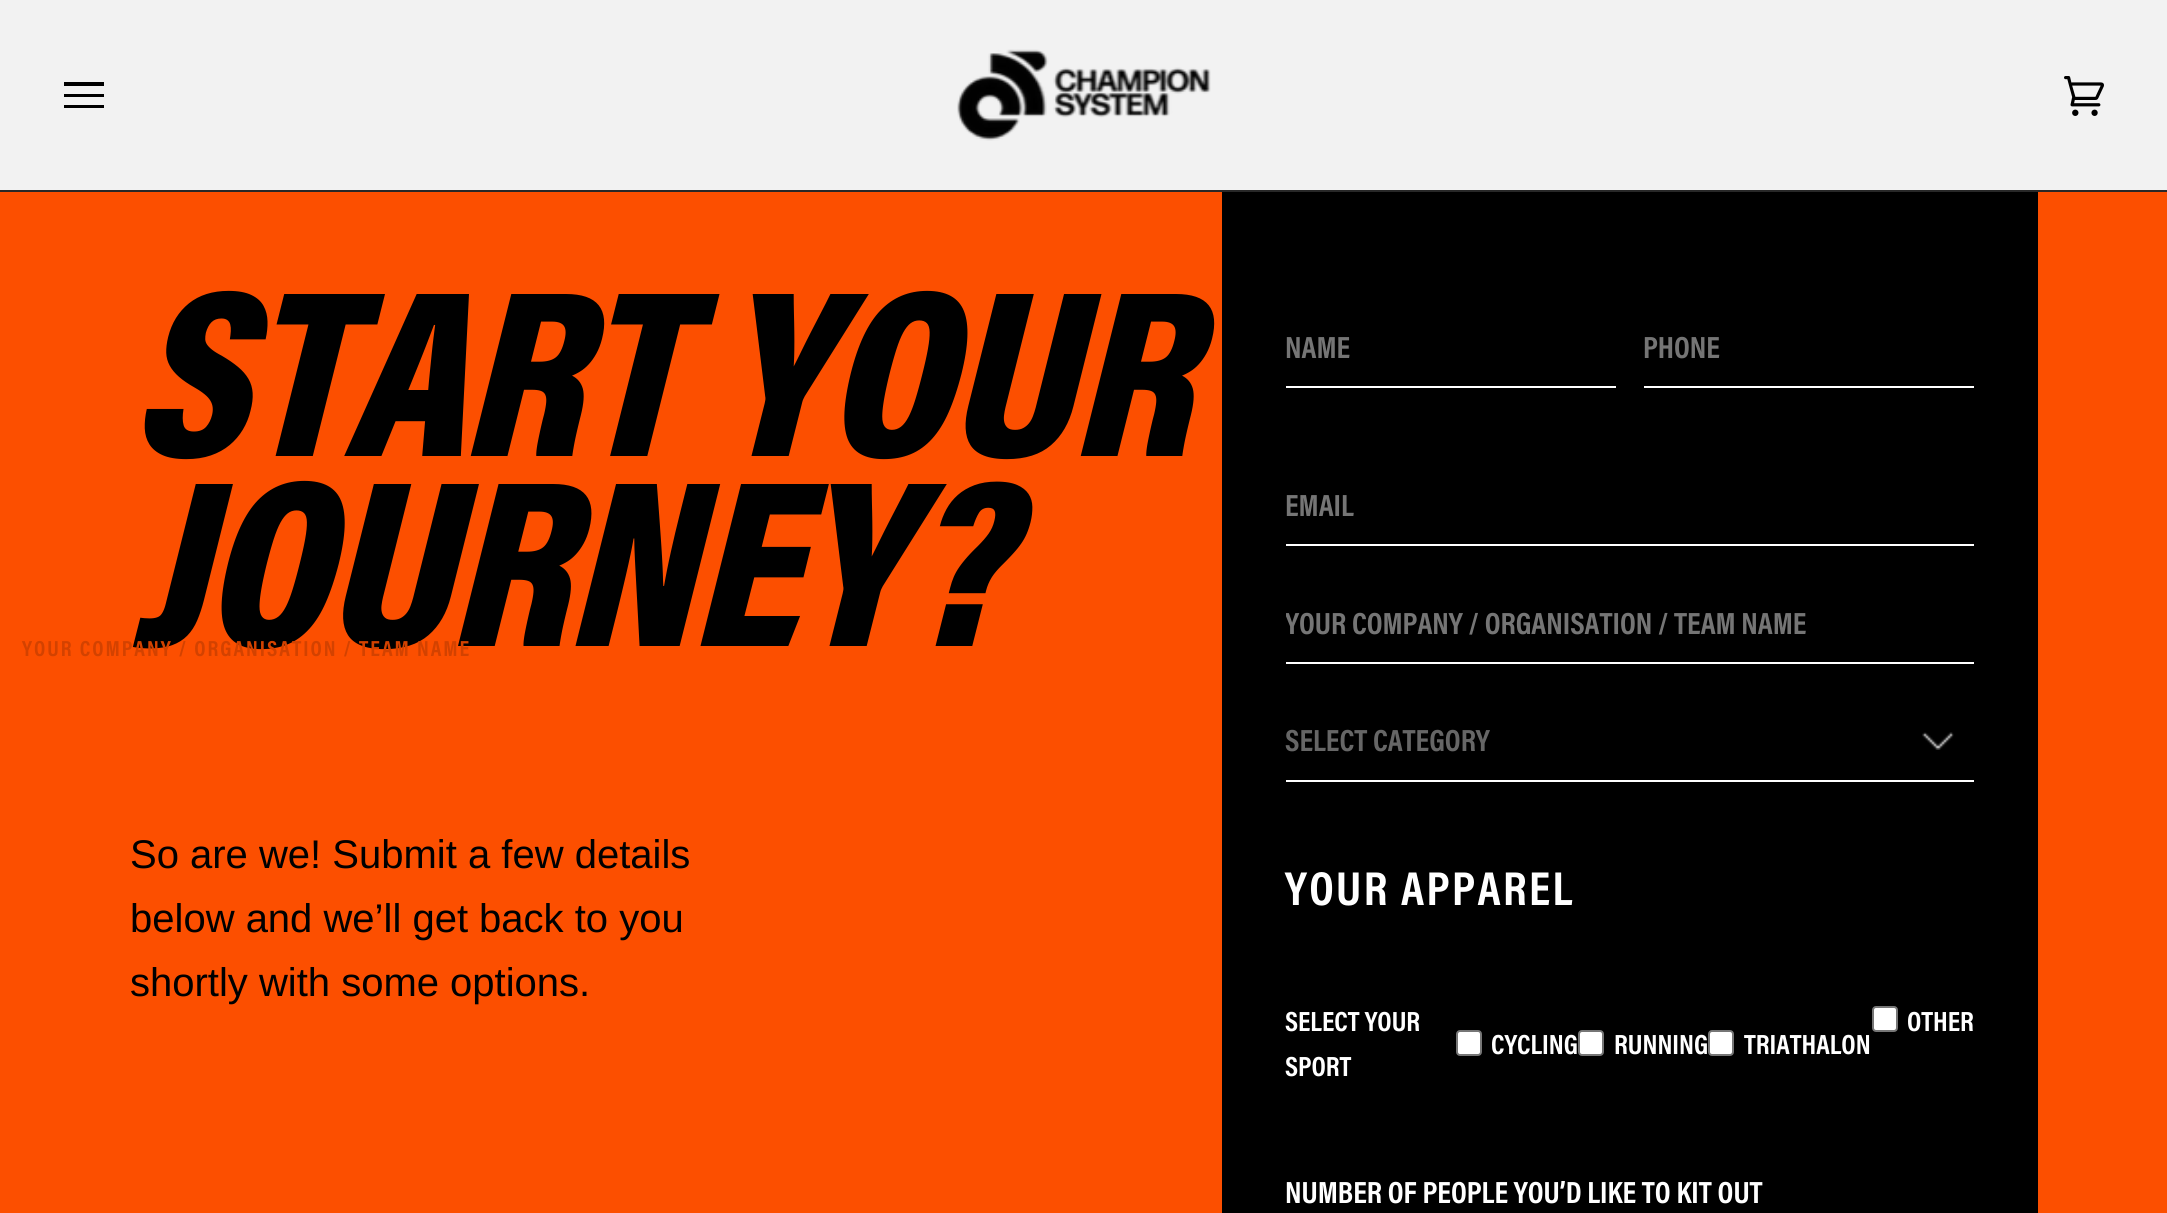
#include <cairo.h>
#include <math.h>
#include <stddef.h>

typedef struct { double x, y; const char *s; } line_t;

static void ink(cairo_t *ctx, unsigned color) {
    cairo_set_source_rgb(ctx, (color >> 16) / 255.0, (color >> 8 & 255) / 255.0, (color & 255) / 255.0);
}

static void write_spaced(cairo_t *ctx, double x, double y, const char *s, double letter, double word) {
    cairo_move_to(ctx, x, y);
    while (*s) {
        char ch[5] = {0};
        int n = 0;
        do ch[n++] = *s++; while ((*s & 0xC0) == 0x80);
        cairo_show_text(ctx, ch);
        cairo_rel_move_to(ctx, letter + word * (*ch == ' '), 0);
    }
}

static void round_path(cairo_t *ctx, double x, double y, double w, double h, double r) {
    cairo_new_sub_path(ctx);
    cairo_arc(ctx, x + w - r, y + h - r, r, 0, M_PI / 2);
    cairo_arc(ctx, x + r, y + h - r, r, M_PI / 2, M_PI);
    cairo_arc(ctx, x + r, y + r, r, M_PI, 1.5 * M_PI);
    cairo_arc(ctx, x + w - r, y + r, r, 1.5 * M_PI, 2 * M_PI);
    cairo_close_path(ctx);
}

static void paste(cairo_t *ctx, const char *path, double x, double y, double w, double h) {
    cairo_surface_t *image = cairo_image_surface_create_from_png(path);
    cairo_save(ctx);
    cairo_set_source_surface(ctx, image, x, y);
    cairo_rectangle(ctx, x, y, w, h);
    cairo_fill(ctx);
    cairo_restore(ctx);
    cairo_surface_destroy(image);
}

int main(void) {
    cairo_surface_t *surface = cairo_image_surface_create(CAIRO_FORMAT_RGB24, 2167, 1213);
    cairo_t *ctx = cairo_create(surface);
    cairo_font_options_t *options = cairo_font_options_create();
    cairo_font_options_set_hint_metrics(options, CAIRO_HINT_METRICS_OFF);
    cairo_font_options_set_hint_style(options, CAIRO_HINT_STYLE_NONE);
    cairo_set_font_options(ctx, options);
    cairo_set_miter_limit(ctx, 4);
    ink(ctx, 0xFC4F00);
    cairo_paint(ctx);
    ink(ctx, 0x282828);
    cairo_rectangle(ctx, 0, 190, 2167, 2);
    cairo_fill(ctx);
    ink(ctx, 0xF2F2F2);
    cairo_rectangle(ctx, 0, 0, 2167, 190);
    cairo_fill(ctx);
    ink(ctx, 0x000000);
    cairo_new_path(ctx);
    cairo_move_to(ctx, 64, 82);
    cairo_line_to(ctx, 104, 82);
    cairo_line_to(ctx, 104, 86);
    cairo_line_to(ctx, 64, 86);
    cairo_close_path(ctx);
    cairo_move_to(ctx, 64, 94);
    cairo_line_to(ctx, 104, 94);
    cairo_line_to(ctx, 104, 97);
    cairo_line_to(ctx, 64, 97);
    cairo_close_path(ctx);
    cairo_move_to(ctx, 64, 105);
    cairo_line_to(ctx, 104, 105);
    cairo_line_to(ctx, 104, 108);
    cairo_line_to(ctx, 64, 108);
    cairo_close_path(ctx);
    cairo_fill(ctx);
    paste(ctx, "media/1.png", 957, 49, 254, 92);
    paste(ctx, "media/2.png", 2064, 76, 40, 40);
    cairo_select_font_face(ctx, "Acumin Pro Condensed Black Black", CAIRO_FONT_SLANT_ITALIC, CAIRO_FONT_WEIGHT_NORMAL);
    cairo_set_font_size(ctx, 240);
    write_spaced(ctx, 130, 456, "START YOUR", -3.6, 0);
    write_spaced(ctx, 130, 646, "JOURNEY?", -3.6, 0);
    cairo_select_font_face(ctx, "Arimo", CAIRO_FONT_SLANT_NORMAL, CAIRO_FONT_WEIGHT_NORMAL);
    cairo_set_font_size(ctx, 40);
    {
        static const line_t items[] = {
            {130, 868, "So are we! Submit a few details"},
            {130, 932, "below and we’ll get back to you"},
            {130, 996, "shortly with some options."},
        };
        for (size_t i = 0; i < sizeof items / sizeof *items; i++) {
            cairo_move_to(ctx, items[i].x, items[i].y);
            cairo_show_text(ctx, items[i].s);
        }
    }
    cairo_rectangle(ctx, 1222, 192, 816, 1021);
    cairo_fill(ctx);
    ink(ctx, 0xFFFFFF);
    cairo_rectangle(ctx, 1286, 386, 330, 2);
    cairo_fill(ctx);
    cairo_select_font_face(ctx, "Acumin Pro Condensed", CAIRO_FONT_SLANT_NORMAL, CAIRO_FONT_WEIGHT_BOLD);
    cairo_set_font_size(ctx, 30.9);
    ink(ctx, 0x757575);
    cairo_move_to(ctx, 1285, 358);
    cairo_show_text(ctx, "NAME");
    ink(ctx, 0xFFFFFF);
    cairo_rectangle(ctx, 1644, 386, 330, 2);
    cairo_fill(ctx);
    ink(ctx, 0x757575);
    cairo_move_to(ctx, 1643, 358);
    cairo_show_text(ctx, "PHONE");
    ink(ctx, 0xFFFFFF);
    cairo_rectangle(ctx, 1286, 544, 688, 2);
    cairo_fill(ctx);
    ink(ctx, 0x757575);
    cairo_move_to(ctx, 1285, 516);
    cairo_show_text(ctx, "EMAIL");
    ink(ctx, 0xFFFFFF);
    cairo_rectangle(ctx, 1286, 662, 688, 2);
    cairo_fill(ctx);
    cairo_save(ctx);
    cairo_rectangle(ctx, 1286, 600, 688, 44);
    cairo_clip(ctx);
    ink(ctx, 0x757575);
    cairo_move_to(ctx, 1285, 634);
    cairo_show_text(ctx, "YOUR COMPANY / ORGANISATION / TEAM NAME");
    cairo_restore(ctx);
    cairo_set_font_size(ctx, 22);
    ink(ctx, 0xD34200);
    write_spaced(ctx, 22, 656, "YOUR COMPANY / ORGANISATION / TEAM NAME", 2, 0);
    paste(ctx, "media/3.png", 1922, 732, 32, 18);
    ink(ctx, 0xFFFFFF);
    cairo_rectangle(ctx, 1286, 780, 688, 2);
    cairo_fill(ctx);
    cairo_set_font_size(ctx, 30.9);
    ink(ctx, 0x666666);
    cairo_move_to(ctx, 1285, 751);
    cairo_show_text(ctx, "SELECT CATEGORY");
    cairo_set_font_size(ctx, 48);
    ink(ctx, 0xFFFFFF);
    write_spaced(ctx, 1285, 905, "YOUR APPAREL", 2.4, 0);
    cairo_set_font_size(ctx, 28);
    cairo_move_to(ctx, 1285, 1031);
    cairo_show_text(ctx, "SELECT YOUR");
    cairo_move_to(ctx, 1285, 1076);
    cairo_show_text(ctx, "SPORT");
    round_path(ctx, 1873, 1007, 24, 24, 3);
    cairo_fill_preserve(ctx);
    ink(ctx, 0x767676);
    cairo_stroke(ctx);
    ink(ctx, 0xFFFFFF);
    cairo_move_to(ctx, 1907, 1031);
    cairo_show_text(ctx, "OTHER");
    round_path(ctx, 1457, 1031, 24, 24, 3);
    cairo_fill_preserve(ctx);
    ink(ctx, 0x767676);
    cairo_stroke(ctx);
    ink(ctx, 0xFFFFFF);
    cairo_move_to(ctx, 1491, 1054);
    cairo_show_text(ctx, "CYCLING");
    round_path(ctx, 1579, 1031, 24, 24, 3);
    cairo_fill_preserve(ctx);
    ink(ctx, 0x767676);
    cairo_stroke(ctx);
    ink(ctx, 0xFFFFFF);
    cairo_move_to(ctx, 1614, 1054);
    cairo_show_text(ctx, "RUNNING");
    round_path(ctx, 1709, 1031, 24, 24, 3);
    cairo_fill_preserve(ctx);
    ink(ctx, 0x767676);
    cairo_stroke(ctx);
    ink(ctx, 0xFFFFFF);
    cairo_move_to(ctx, 1744, 1054);
    cairo_show_text(ctx, "TRIATHALON");
    cairo_set_font_size(ctx, 30.9);
    cairo_move_to(ctx, 1285, 1203);
    cairo_show_text(ctx, "NUMBER OF PEOPLE YOU’D LIKE TO KIT OUT");
    cairo_surface_write_to_png(surface, "image.png");
    cairo_font_options_destroy(options);
    cairo_destroy(ctx);
    cairo_surface_destroy(surface);
    return 0;
}
